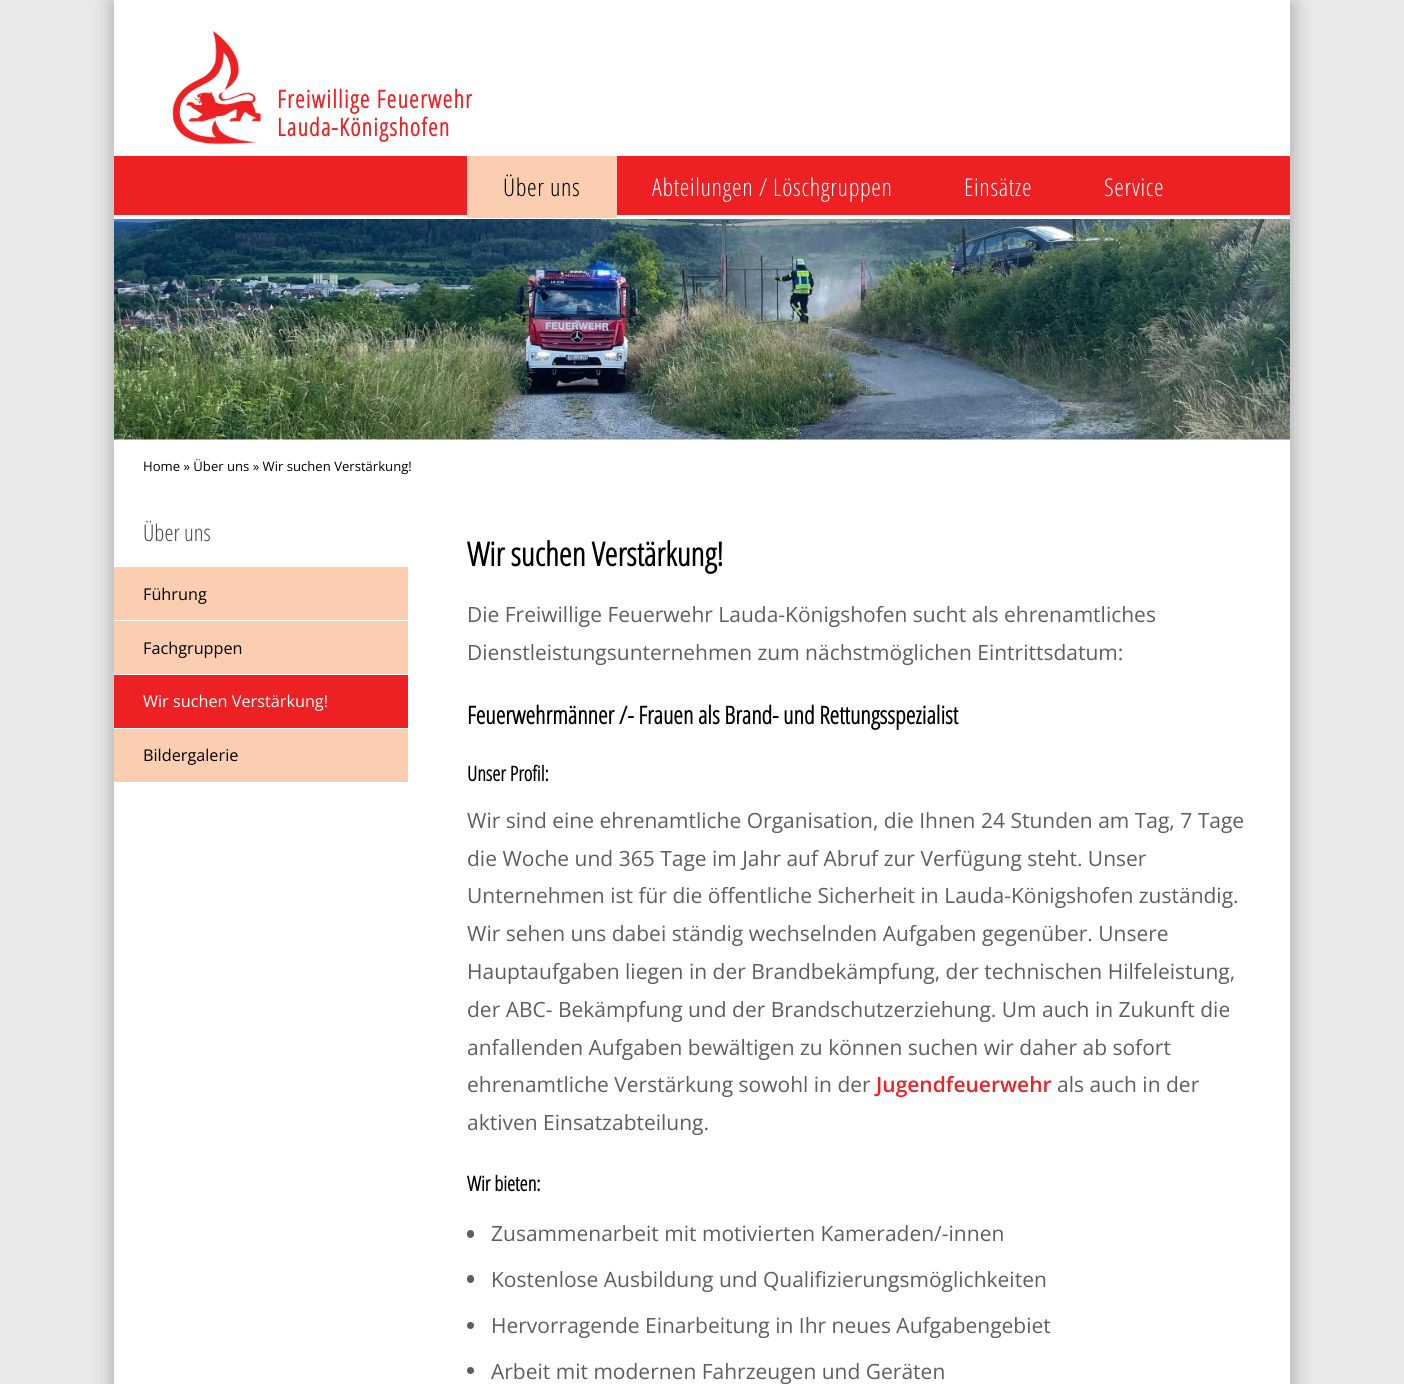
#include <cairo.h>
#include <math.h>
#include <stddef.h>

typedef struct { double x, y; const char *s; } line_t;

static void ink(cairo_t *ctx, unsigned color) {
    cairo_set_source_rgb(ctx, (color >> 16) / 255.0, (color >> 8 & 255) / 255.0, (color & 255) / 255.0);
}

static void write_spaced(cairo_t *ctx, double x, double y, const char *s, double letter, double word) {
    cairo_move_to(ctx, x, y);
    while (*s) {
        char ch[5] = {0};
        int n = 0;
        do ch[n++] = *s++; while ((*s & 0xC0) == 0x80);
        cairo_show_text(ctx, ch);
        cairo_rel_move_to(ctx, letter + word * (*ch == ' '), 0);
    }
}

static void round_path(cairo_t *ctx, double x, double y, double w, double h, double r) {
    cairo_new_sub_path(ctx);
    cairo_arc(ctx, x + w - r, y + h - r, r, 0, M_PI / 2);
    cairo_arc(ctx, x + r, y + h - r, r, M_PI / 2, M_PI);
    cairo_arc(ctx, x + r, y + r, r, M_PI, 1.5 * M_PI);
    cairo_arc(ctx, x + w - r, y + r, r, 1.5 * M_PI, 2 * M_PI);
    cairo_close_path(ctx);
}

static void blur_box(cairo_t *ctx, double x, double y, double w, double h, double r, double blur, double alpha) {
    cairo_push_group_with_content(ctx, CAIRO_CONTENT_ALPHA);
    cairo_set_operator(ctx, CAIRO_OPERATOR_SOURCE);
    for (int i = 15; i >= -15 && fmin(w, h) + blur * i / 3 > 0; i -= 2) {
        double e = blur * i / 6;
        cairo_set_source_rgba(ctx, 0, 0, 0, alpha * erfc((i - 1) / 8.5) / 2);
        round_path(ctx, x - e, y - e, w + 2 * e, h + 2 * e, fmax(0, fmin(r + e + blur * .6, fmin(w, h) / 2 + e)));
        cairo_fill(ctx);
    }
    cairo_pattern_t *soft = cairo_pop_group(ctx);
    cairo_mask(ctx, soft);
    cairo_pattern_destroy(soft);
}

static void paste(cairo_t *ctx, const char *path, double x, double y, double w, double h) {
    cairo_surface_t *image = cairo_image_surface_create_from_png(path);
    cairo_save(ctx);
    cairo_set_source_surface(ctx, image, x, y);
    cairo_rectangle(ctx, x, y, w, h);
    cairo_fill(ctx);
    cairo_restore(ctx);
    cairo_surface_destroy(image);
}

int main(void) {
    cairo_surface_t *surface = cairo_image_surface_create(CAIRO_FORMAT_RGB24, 1404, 1384);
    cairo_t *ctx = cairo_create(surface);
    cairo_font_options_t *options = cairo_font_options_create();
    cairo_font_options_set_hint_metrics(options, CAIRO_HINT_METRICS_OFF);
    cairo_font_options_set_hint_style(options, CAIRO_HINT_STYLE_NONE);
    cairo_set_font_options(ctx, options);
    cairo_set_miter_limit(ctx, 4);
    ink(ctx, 0xEAEAEA);
    cairo_paint(ctx);
    ink(ctx, 0xA6A6A6);
    blur_box(ctx, 113, 3, 1179, 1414, 0, 11, 1);
    ink(ctx, 0xFFFFFF);
    cairo_rectangle(ctx, 114, 0, 1176, 1384);
    cairo_fill(ctx);
    paste(ctx, "media/1.png", 172, 31, 89, 114);
    cairo_select_font_face(ctx, "Open Sans", CAIRO_FONT_SLANT_NORMAL, CAIRO_FONT_WEIGHT_BOLD);
    cairo_set_font_size(ctx, 24.5);
    ink(ctx, 0xED2024);
    write_spaced(ctx, 277, 108, "Freiwillige Feuerwehr", 1.25, 0);
    write_spaced(ctx, 277, 136, "Lauda-Königshofen", 1.25, 0);
    cairo_rectangle(ctx, 114, 156, 1176, 59);
    cairo_fill(ctx);
    ink(ctx, 0xFBCEB1);
    cairo_rectangle(ctx, 467, 156, 150, 62);
    cairo_fill(ctx);
    cairo_select_font_face(ctx, "Open Sans Light", CAIRO_FONT_SLANT_NORMAL, CAIRO_FONT_WEIGHT_NORMAL);
    ink(ctx, 0x000000);
    write_spaced(ctx, 503, 196, "Über uns", 0.65, 0);
    ink(ctx, 0xFFFFFF);
    {
        static const line_t items[] = {
            {652, 196, "Abteilungen / Löschgruppen"},
            {964, 196, "Einsätze"},
            {1104, 196, "Service"},
        };
        for (size_t i = 0; i < sizeof items / sizeof *items; i++) {
            write_spaced(ctx, items[i].x, items[i].y, items[i].s, 0.65, 0);
        }
    }
    paste(ctx, "media/2.png", 114, 219, 1176, 221);
    cairo_select_font_face(ctx, "Open Sans", CAIRO_FONT_SLANT_NORMAL, CAIRO_FONT_WEIGHT_NORMAL);
    cairo_set_font_size(ctx, 13.1);
    ink(ctx, 0x000000);
    cairo_move_to(ctx, 143, 471);
    cairo_show_text(ctx, "Home » Über uns » Wir suchen Verstärkung!");
    cairo_select_font_face(ctx, "Open Sans Light", CAIRO_FONT_SLANT_NORMAL, CAIRO_FONT_WEIGHT_NORMAL);
    cairo_set_font_size(ctx, 23);
    ink(ctx, 0x444444);
    cairo_move_to(ctx, 143, 541);
    cairo_show_text(ctx, "Über uns");
    ink(ctx, 0xFBCEB1);
    cairo_rectangle(ctx, 114, 567, 294, 53);
    cairo_fill(ctx);
    cairo_select_font_face(ctx, "Open Sans", CAIRO_FONT_SLANT_NORMAL, CAIRO_FONT_WEIGHT_NORMAL);
    cairo_set_font_size(ctx, 16.25);
    ink(ctx, 0x000000);
    cairo_move_to(ctx, 143, 600);
    cairo_show_text(ctx, "Führung");
    ink(ctx, 0xFBCEB1);
    cairo_rectangle(ctx, 114, 621, 294, 53);
    cairo_fill(ctx);
    ink(ctx, 0x000000);
    cairo_move_to(ctx, 143, 654);
    cairo_show_text(ctx, "Fachgruppen");
    ink(ctx, 0xED2024);
    cairo_rectangle(ctx, 114, 675, 294, 53);
    cairo_fill(ctx);
    ink(ctx, 0xFFFFFF);
    cairo_move_to(ctx, 143, 707);
    cairo_show_text(ctx, "Wir suchen Verstärkung!");
    ink(ctx, 0xFBCEB1);
    cairo_rectangle(ctx, 114, 729, 294, 53);
    cairo_fill(ctx);
    ink(ctx, 0x000000);
    cairo_move_to(ctx, 143, 761);
    cairo_show_text(ctx, "Bildergalerie");
    cairo_select_font_face(ctx, "Open Sans", CAIRO_FONT_SLANT_NORMAL, CAIRO_FONT_WEIGHT_BOLD);
    cairo_set_font_size(ctx, 32.75);
    cairo_move_to(ctx, 467, 566);
    cairo_show_text(ctx, "Wir suchen Verstärkung!");
    cairo_select_font_face(ctx, "Open Sans", CAIRO_FONT_SLANT_NORMAL, CAIRO_FONT_WEIGHT_NORMAL);
    cairo_set_font_size(ctx, 21);
    ink(ctx, 0x5E5E5E);
    cairo_move_to(ctx, 467, 622);
    cairo_show_text(ctx, "Die Freiwillige Feuerwehr Lauda-Königshofen sucht als ehrenamtliches");
    cairo_move_to(ctx, 467, 660);
    cairo_show_text(ctx, "Dienstleistungsunternehmen zum nächstmöglichen Eintrittsdatum:");
    cairo_select_font_face(ctx, "Open Sans", CAIRO_FONT_SLANT_NORMAL, CAIRO_FONT_WEIGHT_BOLD);
    cairo_set_font_size(ctx, 24.5);
    ink(ctx, 0x000000);
    cairo_move_to(ctx, 467, 724);
    cairo_show_text(ctx, "Feuerwehrmänner /- Frauen als Brand- und Rettungsspezialist");
    cairo_set_font_size(ctx, 20.5);
    cairo_move_to(ctx, 467, 781);
    cairo_show_text(ctx, "Unser Profil:");
    cairo_select_font_face(ctx, "Open Sans", CAIRO_FONT_SLANT_NORMAL, CAIRO_FONT_WEIGHT_NORMAL);
    cairo_set_font_size(ctx, 21);
    ink(ctx, 0x5E5E5E);
    {
        static const line_t items[] = {
            {467, 828, "Wir sind eine ehrenamtliche Organisation, die Ihnen 24 Stunden am Tag, 7 Tage"},
            {467, 866, "die Woche und 365 Tage im Jahr auf Abruf zur Verfügung steht. Unser"},
            {467, 903, "Unternehmen ist für die öffentliche Sicherheit in Lauda-Königshofen zuständig."},
            {467, 941, "Wir sehen uns dabei ständig wechselnden Aufgaben gegenüber. Unsere"},
            {467, 979, "Hauptaufgaben liegen in der Brandbekämpfung, der technischen Hilfeleistung,"},
            {467, 1017, "der ABC- Bekämpfung und der Brandschutzerziehung. Um auch in Zukunft die"},
            {467, 1055, "anfallenden Aufgaben bewältigen zu können suchen wir daher ab sofort"},
            {467, 1092, "ehrenamtliche Verstärkung sowohl in der"},
        };
        for (size_t i = 0; i < sizeof items / sizeof *items; i++) {
            cairo_move_to(ctx, items[i].x, items[i].y);
            cairo_show_text(ctx, items[i].s);
        }
    }
    cairo_select_font_face(ctx, "Open Sans SemiBold", CAIRO_FONT_SLANT_NORMAL, CAIRO_FONT_WEIGHT_NORMAL);
    ink(ctx, 0xED2024);
    cairo_move_to(ctx, 876, 1092);
    cairo_show_text(ctx, "Jugendfeuerwehr");
    cairo_select_font_face(ctx, "Open Sans", CAIRO_FONT_SLANT_NORMAL, CAIRO_FONT_WEIGHT_NORMAL);
    ink(ctx, 0x5E5E5E);
    cairo_move_to(ctx, 1057, 1092);
    cairo_show_text(ctx, "als auch in der");
    cairo_move_to(ctx, 467, 1130);
    cairo_show_text(ctx, "aktiven Einsatzabteilung.");
    cairo_select_font_face(ctx, "Open Sans", CAIRO_FONT_SLANT_NORMAL, CAIRO_FONT_WEIGHT_BOLD);
    cairo_set_font_size(ctx, 20.5);
    ink(ctx, 0x000000);
    cairo_move_to(ctx, 467, 1191);
    cairo_show_text(ctx, "Wir bieten:");
    ink(ctx, 0x5E5E5E);
    round_path(ctx, 467, 1230, 7, 8, 3.5);
    cairo_fill(ctx);
    cairo_select_font_face(ctx, "Open Sans", CAIRO_FONT_SLANT_NORMAL, CAIRO_FONT_WEIGHT_NORMAL);
    cairo_set_font_size(ctx, 21);
    cairo_move_to(ctx, 491, 1241);
    cairo_show_text(ctx, "Zusammenarbeit mit motivierten Kameraden/-innen");
    round_path(ctx, 467, 1275, 7, 8, 3.5);
    cairo_fill(ctx);
    cairo_move_to(ctx, 491, 1287);
    cairo_show_text(ctx, "Kostenlose Ausbildung und Qualifizierungsmöglichkeiten");
    cairo_new_path(ctx);
    cairo_arc(ctx, 470.5, 1325.5, 3.5, 0, 2 * M_PI);
    cairo_fill(ctx);
    cairo_move_to(ctx, 491, 1333);
    cairo_show_text(ctx, "Hervorragende Einarbeitung in Ihr neues Aufgabengebiet");
    cairo_new_path(ctx);
    cairo_arc(ctx, 470.5, 1370.5, 3.5, 0, 2 * M_PI);
    cairo_fill(ctx);
    cairo_move_to(ctx, 491, 1379);
    cairo_show_text(ctx, "Arbeit mit modernen Fahrzeugen und Geräten");
    cairo_surface_write_to_png(surface, "image.png");
    cairo_font_options_destroy(options);
    cairo_destroy(ctx);
    cairo_surface_destroy(surface);
    return 0;
}
